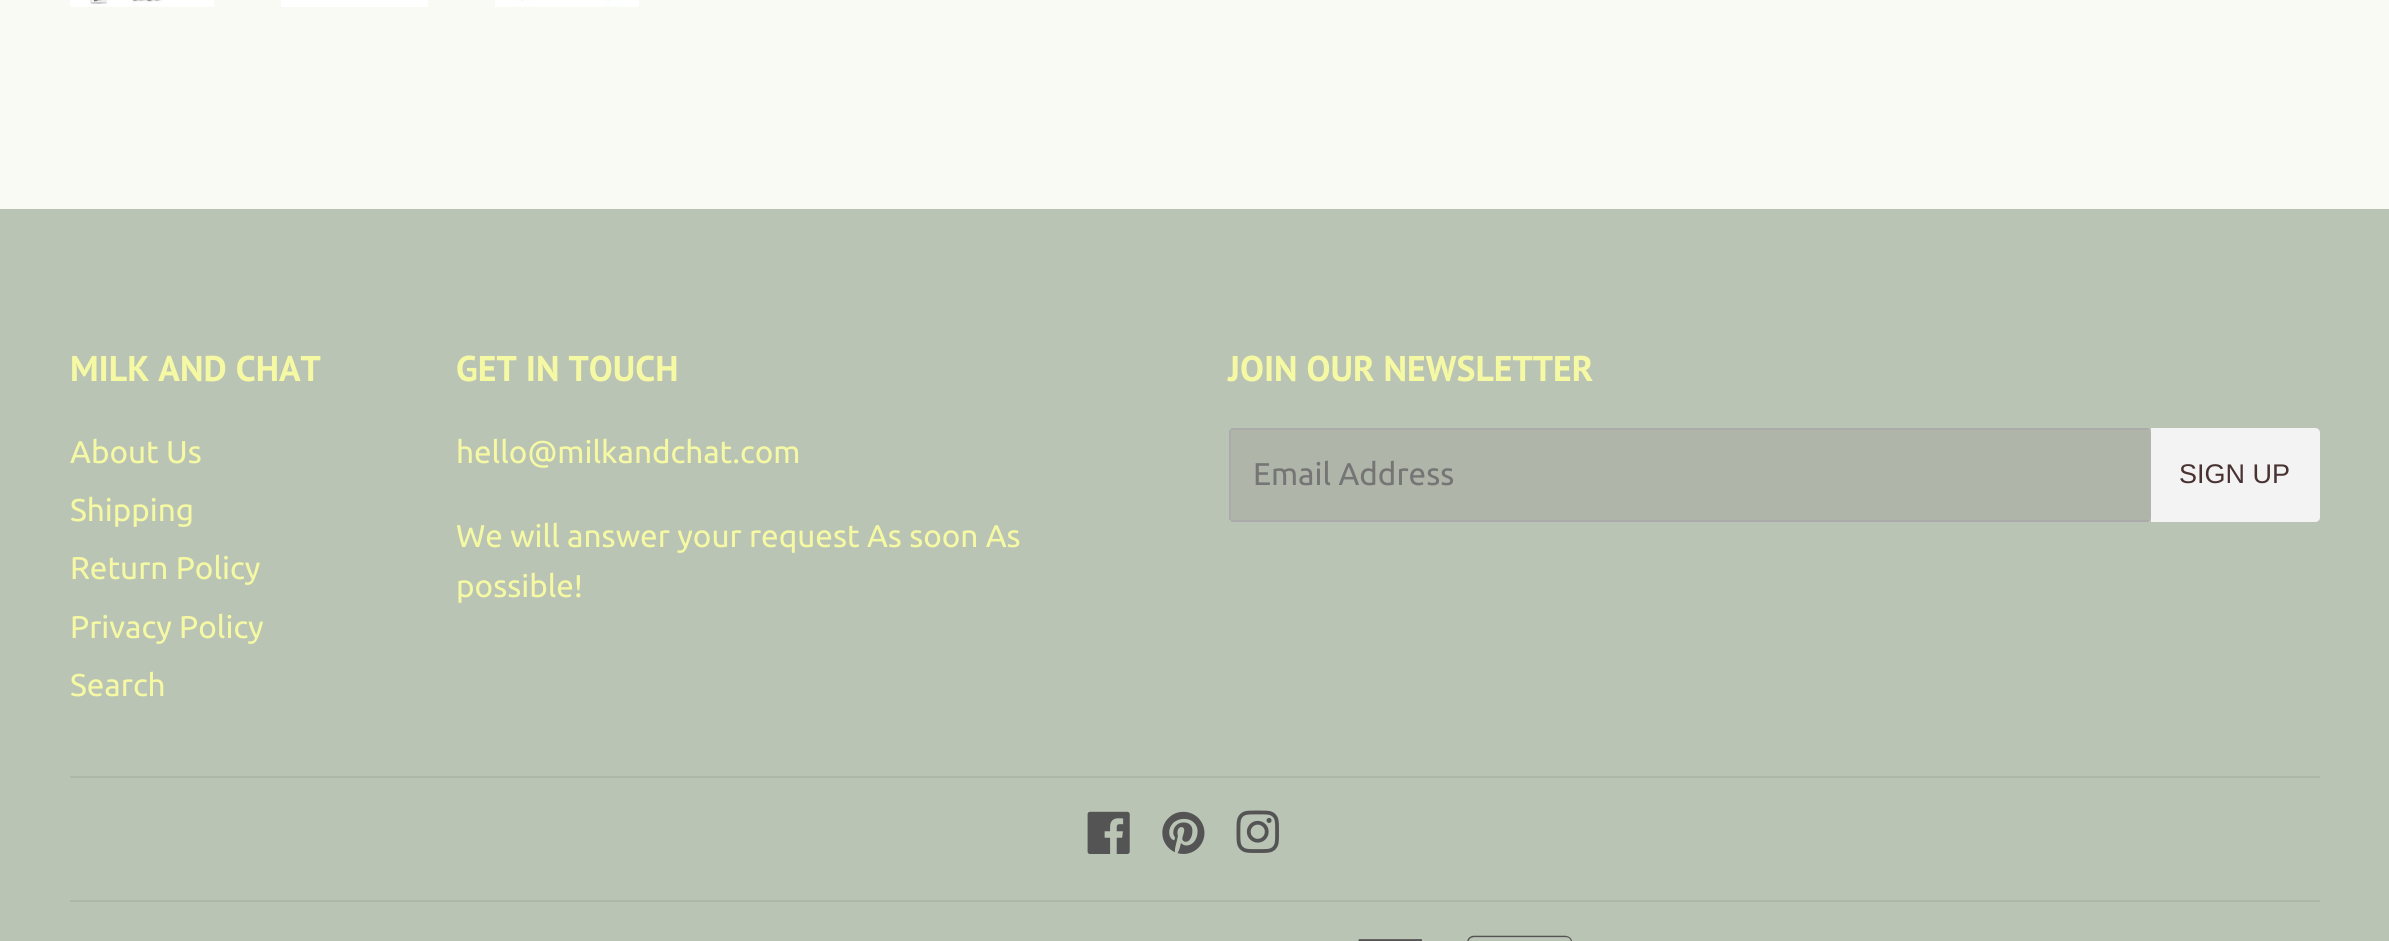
#include <cairo.h>
#include <math.h>
#include <stddef.h>

typedef struct { double x, y; const char *s; } line_t;
typedef struct { double x, y, w, h; unsigned color; } box_t;

static void ink(cairo_t *ctx, unsigned color) {
    cairo_set_source_rgb(ctx, (color >> 16) / 255.0, (color >> 8 & 255) / 255.0, (color & 255) / 255.0);
}

static void round_path(cairo_t *ctx, double x, double y, double w, double h, double r) {
    cairo_new_sub_path(ctx);
    cairo_arc(ctx, x + w - r, y + h - r, r, 0, M_PI / 2);
    cairo_arc(ctx, x + r, y + h - r, r, M_PI / 2, M_PI);
    cairo_arc(ctx, x + r, y + r, r, M_PI, 1.5 * M_PI);
    cairo_arc(ctx, x + w - r, y + r, r, 1.5 * M_PI, 2 * M_PI);
    cairo_close_path(ctx);
}

static void paste(cairo_t *ctx, const char *path, double x, double y, double w, double h) {
    cairo_surface_t *image = cairo_image_surface_create_from_png(path);
    cairo_save(ctx);
    cairo_set_source_surface(ctx, image, x, y);
    cairo_rectangle(ctx, x, y, w, h);
    cairo_fill(ctx);
    cairo_restore(ctx);
    cairo_surface_destroy(image);
}

int main(void) {
    cairo_surface_t *surface = cairo_image_surface_create(CAIRO_FORMAT_RGB24, 2389, 941);
    cairo_t *ctx = cairo_create(surface);
    cairo_font_options_t *options = cairo_font_options_create();
    cairo_font_options_set_hint_metrics(options, CAIRO_HINT_METRICS_OFF);
    cairo_font_options_set_hint_style(options, CAIRO_HINT_STYLE_NONE);
    cairo_set_font_options(ctx, options);
    cairo_set_miter_limit(ctx, 4);
    ink(ctx, 0xFAFAF4);
    cairo_paint(ctx);
    paste(ctx, "media/1.png", 70, 0, 144, 7);
    ink(ctx, 0xFFFFFF);
    cairo_rectangle(ctx, 281, 0, 147, 7);
    cairo_fill(ctx);
    paste(ctx, "media/2.png", 495, 0, 144, 7);
    ink(ctx, 0xBAC4B5);
    cairo_rectangle(ctx, 0, 209, 2389, 732);
    cairo_fill(ctx);
    cairo_select_font_face(ctx, "PT Sans", CAIRO_FONT_SLANT_NORMAL, CAIRO_FONT_WEIGHT_BOLD);
    cairo_set_font_size(ctx, 35.75);
    ink(ctx, 0xF6F9A3);
    cairo_move_to(ctx, 70, 381);
    cairo_show_text(ctx, "MILK AND CHAT");
    cairo_select_font_face(ctx, "Ubuntu", CAIRO_FONT_SLANT_NORMAL, CAIRO_FONT_WEIGHT_NORMAL);
    cairo_set_font_size(ctx, 31.5);
    {
        static const line_t items[] = {
            {70, 463, "About Us"},
            {70, 521, "Shipping"},
            {70, 579, "Return Policy"},
            {70, 638, "Privacy Policy"},
            {70, 696, "Search"},
        };
        for (size_t i = 0; i < sizeof items / sizeof *items; i++) {
            cairo_move_to(ctx, items[i].x, items[i].y);
            cairo_show_text(ctx, items[i].s);
        }
    }
    cairo_select_font_face(ctx, "PT Sans", CAIRO_FONT_SLANT_NORMAL, CAIRO_FONT_WEIGHT_BOLD);
    cairo_set_font_size(ctx, 35.75);
    cairo_move_to(ctx, 456, 381);
    cairo_show_text(ctx, "GET IN TOUCH");
    cairo_select_font_face(ctx, "Ubuntu", CAIRO_FONT_SLANT_NORMAL, CAIRO_FONT_WEIGHT_NORMAL);
    cairo_set_font_size(ctx, 31.5);
    {
        static const line_t items[] = {
            {456, 463, "hello@milkandchat.com"},
            {456, 547, "We will answer your request As soon As"},
            {456, 597, "possible!"},
        };
        for (size_t i = 0; i < sizeof items / sizeof *items; i++) {
            cairo_move_to(ctx, items[i].x, items[i].y);
            cairo_show_text(ctx, items[i].s);
        }
    }
    cairo_select_font_face(ctx, "PT Sans", CAIRO_FONT_SLANT_NORMAL, CAIRO_FONT_WEIGHT_BOLD);
    cairo_set_font_size(ctx, 35.75);
    cairo_move_to(ctx, 1228, 381);
    cairo_show_text(ctx, "JOIN OUR NEWSLETTER");
    ink(ctx, 0xAFB5A8);
    round_path(ctx, 1229, 428, 922, 94, 5);
    cairo_fill(ctx);
    {
        static const box_t items[] = {
            {1231, 428, 918, 2, 0xABABAB},
            {1231, 520, 918, 2, 0xABABAB},
            {1229, 430, 2, 90, 0xABABAB},
        };
        for (size_t i = 0; i < sizeof items / sizeof *items; i++) {
            ink(ctx, items[i].color);
            cairo_rectangle(ctx, items[i].x, items[i].y, items[i].w, items[i].h);
            cairo_fill(ctx);
        }
    }
    cairo_select_font_face(ctx, "Ubuntu", CAIRO_FONT_SLANT_NORMAL, CAIRO_FONT_WEIGHT_NORMAL);
    cairo_set_font_size(ctx, 31.5);
    ink(ctx, 0x757575);
    cairo_move_to(ctx, 1253, 485);
    cairo_show_text(ctx, "Email Address");
    ink(ctx, 0xF3F3F3);
    cairo_new_path(ctx);
    cairo_move_to(ctx, 2151, 428);
    cairo_line_to(ctx, 2315, 428);
    cairo_curve_to(ctx, 2318, 428, 2320, 430, 2320, 433);
    cairo_line_to(ctx, 2320, 517);
    cairo_curve_to(ctx, 2320, 520, 2318, 522, 2315, 522);
    cairo_line_to(ctx, 2151, 522);
    cairo_close_path(ctx);
    cairo_fill(ctx);
    cairo_select_font_face(ctx, "Liberation Sans", CAIRO_FONT_SLANT_NORMAL, CAIRO_FONT_WEIGHT_NORMAL);
    cairo_set_font_size(ctx, 27);
    ink(ctx, 0x493232);
    cairo_move_to(ctx, 2179, 483);
    cairo_show_text(ctx, "SIGN UP");
    ink(ctx, 0xADB9A7);
    cairo_rectangle(ctx, 70, 776, 2250, 2);
    cairo_fill(ctx);
    paste(ctx, "media/3.png", 1087, 811, 43, 43);
    paste(ctx, "media/4.png", 1162, 811, 43, 43);
    paste(ctx, "media/5.png", 1236, 810, 43, 43);
    cairo_rectangle(ctx, 70, 900, 2250, 2);
    cairo_fill(ctx);
    paste(ctx, "media/6.png", 1358, 939, 64, 2);
    paste(ctx, "media/7.png", 1467, 935, 105, 6);
    cairo_surface_write_to_png(surface, "image.png");
    cairo_font_options_destroy(options);
    cairo_destroy(ctx);
    cairo_surface_destroy(surface);
    return 0;
}
